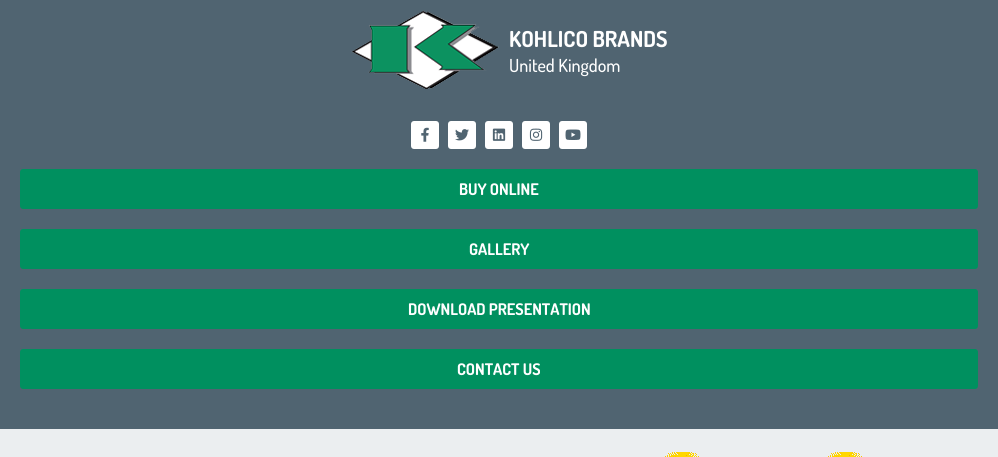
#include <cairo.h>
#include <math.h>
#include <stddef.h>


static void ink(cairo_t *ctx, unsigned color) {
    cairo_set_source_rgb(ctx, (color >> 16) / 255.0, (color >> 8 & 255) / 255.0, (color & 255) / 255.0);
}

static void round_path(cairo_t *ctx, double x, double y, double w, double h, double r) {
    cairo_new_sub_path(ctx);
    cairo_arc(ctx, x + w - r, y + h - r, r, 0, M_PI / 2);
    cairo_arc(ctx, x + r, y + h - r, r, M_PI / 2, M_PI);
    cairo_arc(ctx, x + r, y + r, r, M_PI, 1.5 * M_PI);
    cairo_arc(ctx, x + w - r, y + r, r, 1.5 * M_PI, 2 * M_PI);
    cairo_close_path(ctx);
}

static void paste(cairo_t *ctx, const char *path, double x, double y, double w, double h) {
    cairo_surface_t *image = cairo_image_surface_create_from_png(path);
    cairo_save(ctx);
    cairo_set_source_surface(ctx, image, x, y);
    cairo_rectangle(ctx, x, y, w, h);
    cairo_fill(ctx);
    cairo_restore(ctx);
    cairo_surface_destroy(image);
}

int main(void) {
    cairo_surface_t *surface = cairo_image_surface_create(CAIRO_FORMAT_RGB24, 998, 457);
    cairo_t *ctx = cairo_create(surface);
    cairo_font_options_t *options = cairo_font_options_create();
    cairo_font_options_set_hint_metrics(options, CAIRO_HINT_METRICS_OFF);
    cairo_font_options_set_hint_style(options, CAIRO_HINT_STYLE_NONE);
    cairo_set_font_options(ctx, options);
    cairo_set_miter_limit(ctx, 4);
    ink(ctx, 0xEBEEF0);
    cairo_paint(ctx);
    ink(ctx, 0x506471);
    cairo_rectangle(ctx, 0, 0, 998, 429);
    cairo_fill(ctx);
    paste(ctx, "media/1.png", 351, 10, 148, 79);
    cairo_select_font_face(ctx, "Dosis", CAIRO_FONT_SLANT_NORMAL, CAIRO_FONT_WEIGHT_BOLD);
    cairo_set_font_size(ctx, 22);
    ink(ctx, 0xFFFFFF);
    cairo_move_to(ctx, 509, 47);
    cairo_show_text(ctx, "KOHLICO BRANDS");
    cairo_select_font_face(ctx, "Dosis Medium", CAIRO_FONT_SLANT_NORMAL, CAIRO_FONT_WEIGHT_NORMAL);
    cairo_set_font_size(ctx, 18);
    cairo_move_to(ctx, 509, 72);
    cairo_show_text(ctx, "United Kingdom");
    round_path(ctx, 411, 121, 28, 28, 3);
    cairo_fill(ctx);
    paste(ctx, "media/2.png", 421, 127, 8, 15);
    round_path(ctx, 448, 121, 28, 28, 3);
    cairo_fill(ctx);
    paste(ctx, "media/3.png", 455, 129, 14, 12);
    round_path(ctx, 485, 121, 28, 28, 3);
    cairo_fill(ctx);
    paste(ctx, "media/4.png", 492, 128, 14, 13);
    round_path(ctx, 522, 121, 28, 28, 3);
    cairo_fill(ctx);
    paste(ctx, "media/5.png", 529, 128, 14, 13);
    round_path(ctx, 559, 121, 28, 28, 3);
    cairo_fill(ctx);
    paste(ctx, "media/6.png", 565, 129, 16, 11);
    ink(ctx, 0x00905F);
    round_path(ctx, 20, 169, 958, 40, 3);
    cairo_fill(ctx);
    cairo_select_font_face(ctx, "Dosis", CAIRO_FONT_SLANT_NORMAL, CAIRO_FONT_WEIGHT_BOLD);
    cairo_set_font_size(ctx, 16);
    ink(ctx, 0xFFFFFF);
    cairo_move_to(ctx, 459, 195);
    cairo_show_text(ctx, "BUY ONLINE");
    ink(ctx, 0x00905F);
    round_path(ctx, 20, 229, 958, 40, 3);
    cairo_fill(ctx);
    ink(ctx, 0xFFFFFF);
    cairo_move_to(ctx, 469, 255);
    cairo_show_text(ctx, "GALLERY");
    ink(ctx, 0x00905F);
    round_path(ctx, 20, 289, 958, 40, 3);
    cairo_fill(ctx);
    ink(ctx, 0xFFFFFF);
    cairo_move_to(ctx, 408, 315);
    cairo_show_text(ctx, "DOWNLOAD PRESENTATION");
    ink(ctx, 0x00905F);
    round_path(ctx, 20, 349, 958, 40, 3);
    cairo_fill(ctx);
    ink(ctx, 0xFFFFFF);
    cairo_move_to(ctx, 457, 375);
    cairo_show_text(ctx, "CONTACT US");
    paste(ctx, "media/7.png", 665, 452, 34, 5);
    paste(ctx, "media/7.png", 828, 452, 34, 5);
    cairo_surface_write_to_png(surface, "image.png");
    cairo_font_options_destroy(options);
    cairo_destroy(ctx);
    cairo_surface_destroy(surface);
    return 0;
}
